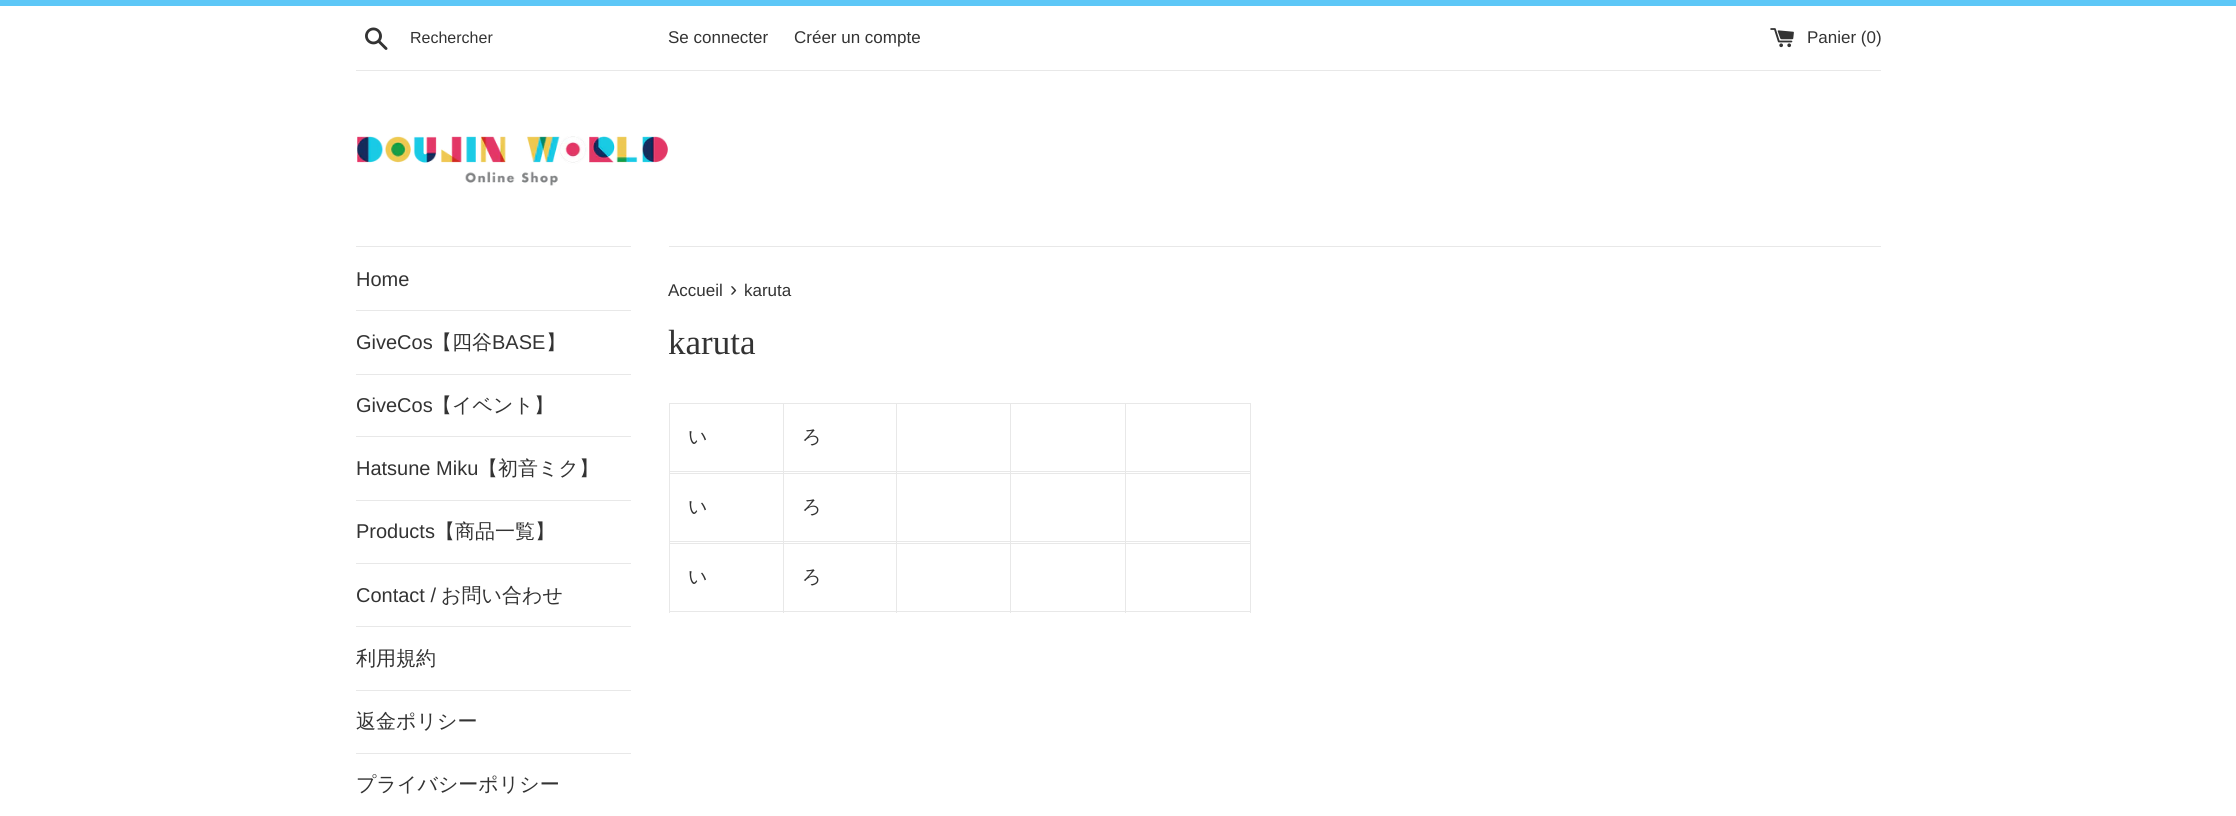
#include <cairo.h>
#include <math.h>
#include <stddef.h>

typedef struct { double x, y, w, h; unsigned color; } box_t;

static void ink(cairo_t *ctx, unsigned color) {
    cairo_set_source_rgb(ctx, (color >> 16) / 255.0, (color >> 8 & 255) / 255.0, (color & 255) / 255.0);
}

static void paste(cairo_t *ctx, const char *path, double x, double y, double w, double h) {
    cairo_surface_t *image = cairo_image_surface_create_from_png(path);
    cairo_save(ctx);
    cairo_set_source_surface(ctx, image, x, y);
    cairo_rectangle(ctx, x, y, w, h);
    cairo_fill(ctx);
    cairo_restore(ctx);
    cairo_surface_destroy(image);
}

int main(void) {
    cairo_surface_t *surface = cairo_image_surface_create(CAIRO_FORMAT_RGB24, 2236, 816);
    cairo_t *ctx = cairo_create(surface);
    cairo_font_options_t *options = cairo_font_options_create();
    cairo_font_options_set_hint_metrics(options, CAIRO_HINT_METRICS_OFF);
    cairo_font_options_set_hint_style(options, CAIRO_HINT_STYLE_NONE);
    cairo_set_font_options(ctx, options);
    cairo_set_miter_limit(ctx, 4);
    ink(ctx, 0xFFFFFF);
    cairo_paint(ctx);
    ink(ctx, 0x5DC7F7);
    cairo_rectangle(ctx, 0, 0, 2236, 6);
    cairo_fill(ctx);
    paste(ctx, "media/1.png", 365, 27, 23, 23);
    cairo_select_font_face(ctx, "Liberation Sans", CAIRO_FONT_SLANT_NORMAL, CAIRO_FONT_WEIGHT_NORMAL);
    cairo_set_font_size(ctx, 16);
    ink(ctx, 0x333333);
    cairo_move_to(ctx, 410, 43);
    cairo_show_text(ctx, "Rechercher");
    cairo_set_font_size(ctx, 17);
    cairo_move_to(ctx, 668, 43);
    cairo_show_text(ctx, "Se connecter");
    cairo_move_to(ctx, 794, 43);
    cairo_show_text(ctx, "Créer un compte");
    paste(ctx, "media/2.png", 1770, 28, 24, 20);
    cairo_move_to(ctx, 1807, 43);
    cairo_show_text(ctx, "Panier (0)");
    ink(ctx, 0xE8E8E8);
    cairo_rectangle(ctx, 356, 70, 1525, 1);
    cairo_fill(ctx);
    paste(ctx, "media/3.png", 357, 136, 311, 50);
    cairo_rectangle(ctx, 356, 246, 275, 1);
    cairo_fill(ctx);
    cairo_rectangle(ctx, 356, 310, 275, 1);
    cairo_fill(ctx);
    cairo_set_font_size(ctx, 20);
    ink(ctx, 0x333333);
    cairo_move_to(ctx, 356, 286);
    cairo_show_text(ctx, "Home");
    ink(ctx, 0xE8E8E8);
    cairo_rectangle(ctx, 356, 374, 275, 1);
    cairo_fill(ctx);
    ink(ctx, 0x333333);
    cairo_move_to(ctx, 356, 349);
    cairo_show_text(ctx, "GiveCos");
    cairo_select_font_face(ctx, "WenQuanYi Zen Hei Medium", CAIRO_FONT_SLANT_NORMAL, CAIRO_FONT_WEIGHT_NORMAL);
    cairo_move_to(ctx, 432, 349);
    cairo_show_text(ctx, "【四谷");
    cairo_select_font_face(ctx, "Liberation Sans", CAIRO_FONT_SLANT_NORMAL, CAIRO_FONT_WEIGHT_NORMAL);
    cairo_move_to(ctx, 492, 349);
    cairo_show_text(ctx, "BASE");
    cairo_select_font_face(ctx, "WenQuanYi Zen Hei Medium", CAIRO_FONT_SLANT_NORMAL, CAIRO_FONT_WEIGHT_NORMAL);
    cairo_move_to(ctx, 546, 349);
    cairo_show_text(ctx, "】");
    ink(ctx, 0xE8E8E8);
    cairo_rectangle(ctx, 356, 436, 275, 1);
    cairo_fill(ctx);
    cairo_select_font_face(ctx, "Liberation Sans", CAIRO_FONT_SLANT_NORMAL, CAIRO_FONT_WEIGHT_NORMAL);
    ink(ctx, 0x333333);
    cairo_move_to(ctx, 356, 412);
    cairo_show_text(ctx, "GiveCos");
    cairo_select_font_face(ctx, "WenQuanYi Zen Hei Medium", CAIRO_FONT_SLANT_NORMAL, CAIRO_FONT_WEIGHT_NORMAL);
    cairo_move_to(ctx, 432, 412);
    cairo_show_text(ctx, "【イベント】");
    ink(ctx, 0xE8E8E8);
    cairo_rectangle(ctx, 356, 500, 275, 1);
    cairo_fill(ctx);
    cairo_select_font_face(ctx, "Liberation Sans", CAIRO_FONT_SLANT_NORMAL, CAIRO_FONT_WEIGHT_NORMAL);
    ink(ctx, 0x333333);
    cairo_move_to(ctx, 356, 475);
    cairo_show_text(ctx, "Hatsune Miku");
    cairo_select_font_face(ctx, "WenQuanYi Zen Hei Medium", CAIRO_FONT_SLANT_NORMAL, CAIRO_FONT_WEIGHT_NORMAL);
    cairo_move_to(ctx, 478, 475);
    cairo_show_text(ctx, "【初音ミク】");
    ink(ctx, 0xE8E8E8);
    cairo_rectangle(ctx, 356, 563, 275, 1);
    cairo_fill(ctx);
    cairo_select_font_face(ctx, "Liberation Sans", CAIRO_FONT_SLANT_NORMAL, CAIRO_FONT_WEIGHT_NORMAL);
    ink(ctx, 0x333333);
    cairo_move_to(ctx, 356, 538);
    cairo_show_text(ctx, "Products");
    cairo_select_font_face(ctx, "WenQuanYi Zen Hei Medium", CAIRO_FONT_SLANT_NORMAL, CAIRO_FONT_WEIGHT_NORMAL);
    cairo_move_to(ctx, 435, 538);
    cairo_show_text(ctx, "【商品一覧】");
    ink(ctx, 0xE8E8E8);
    cairo_rectangle(ctx, 356, 626, 275, 1);
    cairo_fill(ctx);
    cairo_select_font_face(ctx, "Liberation Sans", CAIRO_FONT_SLANT_NORMAL, CAIRO_FONT_WEIGHT_NORMAL);
    ink(ctx, 0x333333);
    cairo_move_to(ctx, 356, 602);
    cairo_show_text(ctx, "Contact /");
    cairo_select_font_face(ctx, "WenQuanYi Zen Hei Medium", CAIRO_FONT_SLANT_NORMAL, CAIRO_FONT_WEIGHT_NORMAL);
    cairo_move_to(ctx, 441, 602);
    cairo_show_text(ctx, "お問い合わせ");
    ink(ctx, 0xE8E8E8);
    cairo_rectangle(ctx, 356, 690, 275, 1);
    cairo_fill(ctx);
    ink(ctx, 0x333333);
    cairo_move_to(ctx, 356, 665);
    cairo_show_text(ctx, "利用規約");
    ink(ctx, 0xE8E8E8);
    cairo_rectangle(ctx, 356, 753, 275, 1);
    cairo_fill(ctx);
    ink(ctx, 0x333333);
    cairo_move_to(ctx, 356, 728);
    cairo_show_text(ctx, "返金ポリシー");
    cairo_move_to(ctx, 356, 791);
    cairo_show_text(ctx, "プライバシーポリシー");
    ink(ctx, 0xE8E8E8);
    cairo_rectangle(ctx, 669, 246, 1212, 1);
    cairo_fill(ctx);
    cairo_select_font_face(ctx, "Liberation Sans", CAIRO_FONT_SLANT_NORMAL, CAIRO_FONT_WEIGHT_NORMAL);
    cairo_set_font_size(ctx, 17);
    ink(ctx, 0x333333);
    cairo_move_to(ctx, 668, 296);
    cairo_show_text(ctx, "Accueil");
    cairo_set_font_size(ctx, 21);
    cairo_move_to(ctx, 730, 296);
    cairo_show_text(ctx, "›");
    cairo_set_font_size(ctx, 17);
    cairo_move_to(ctx, 744, 296);
    cairo_show_text(ctx, "karuta");
    cairo_select_font_face(ctx, "Liberation Serif", CAIRO_FONT_SLANT_NORMAL, CAIRO_FONT_WEIGHT_NORMAL);
    cairo_set_font_size(ctx, 35);
    cairo_move_to(ctx, 668, 354);
    cairo_show_text(ctx, "karuta");
    {
        static const box_t items[] = {
            {669, 403, 582, 1, 0xE8E8E8},
            {1250, 403, 1, 70, 0xE8E8E8},
            {669, 471, 582, 1, 0xE8E8E8},
            {669, 403, 1, 70, 0xE8E8E8},
        };
        for (size_t i = 0; i < sizeof items / sizeof *items; i++) {
            ink(ctx, items[i].color);
            cairo_rectangle(ctx, items[i].x, items[i].y, items[i].w, items[i].h);
            cairo_fill(ctx);
        }
    }
    cairo_select_font_face(ctx, "WenQuanYi Zen Hei Medium", CAIRO_FONT_SLANT_NORMAL, CAIRO_FONT_WEIGHT_NORMAL);
    cairo_set_font_size(ctx, 19);
    ink(ctx, 0x333333);
    cairo_move_to(ctx, 688, 443);
    cairo_show_text(ctx, "い");
    ink(ctx, 0xE8E8E8);
    cairo_rectangle(ctx, 783, 403, 1, 70);
    cairo_fill(ctx);
    ink(ctx, 0x333333);
    cairo_move_to(ctx, 802, 443);
    cairo_show_text(ctx, "ろ");
    {
        static const box_t items[] = {
            {896, 403, 1, 70, 0xE8E8E8},
            {1010, 403, 1, 70, 0xE8E8E8},
            {1125, 403, 1, 70, 0xE8E8E8},
            {669, 473, 582, 1, 0xE8E8E8},
            {1250, 473, 1, 70, 0xE8E8E8},
            {669, 541, 582, 1, 0xE8E8E8},
            {669, 473, 1, 70, 0xE8E8E8},
        };
        for (size_t i = 0; i < sizeof items / sizeof *items; i++) {
            ink(ctx, items[i].color);
            cairo_rectangle(ctx, items[i].x, items[i].y, items[i].w, items[i].h);
            cairo_fill(ctx);
        }
    }
    ink(ctx, 0x333333);
    cairo_move_to(ctx, 688, 513);
    cairo_show_text(ctx, "い");
    ink(ctx, 0xE8E8E8);
    cairo_rectangle(ctx, 783, 473, 1, 70);
    cairo_fill(ctx);
    ink(ctx, 0x333333);
    cairo_move_to(ctx, 802, 513);
    cairo_show_text(ctx, "ろ");
    {
        static const box_t items[] = {
            {896, 473, 1, 70, 0xE8E8E8},
            {1010, 473, 1, 70, 0xE8E8E8},
            {1125, 473, 1, 70, 0xE8E8E8},
            {669, 543, 582, 1, 0xE8E8E8},
            {1250, 543, 1, 70, 0xE8E8E8},
            {669, 611, 582, 1, 0xE8E8E8},
            {669, 543, 1, 70, 0xE8E8E8},
        };
        for (size_t i = 0; i < sizeof items / sizeof *items; i++) {
            ink(ctx, items[i].color);
            cairo_rectangle(ctx, items[i].x, items[i].y, items[i].w, items[i].h);
            cairo_fill(ctx);
        }
    }
    ink(ctx, 0x333333);
    cairo_move_to(ctx, 688, 583);
    cairo_show_text(ctx, "い");
    ink(ctx, 0xE8E8E8);
    cairo_rectangle(ctx, 783, 543, 1, 70);
    cairo_fill(ctx);
    ink(ctx, 0x333333);
    cairo_move_to(ctx, 802, 583);
    cairo_show_text(ctx, "ろ");
    {
        static const box_t items[] = {
            {896, 543, 1, 70, 0xE8E8E8},
            {1010, 543, 1, 70, 0xE8E8E8},
            {1125, 543, 1, 70, 0xE8E8E8},
        };
        for (size_t i = 0; i < sizeof items / sizeof *items; i++) {
            ink(ctx, items[i].color);
            cairo_rectangle(ctx, items[i].x, items[i].y, items[i].w, items[i].h);
            cairo_fill(ctx);
        }
    }
    cairo_surface_write_to_png(surface, "image.png");
    cairo_font_options_destroy(options);
    cairo_destroy(ctx);
    cairo_surface_destroy(surface);
    return 0;
}
